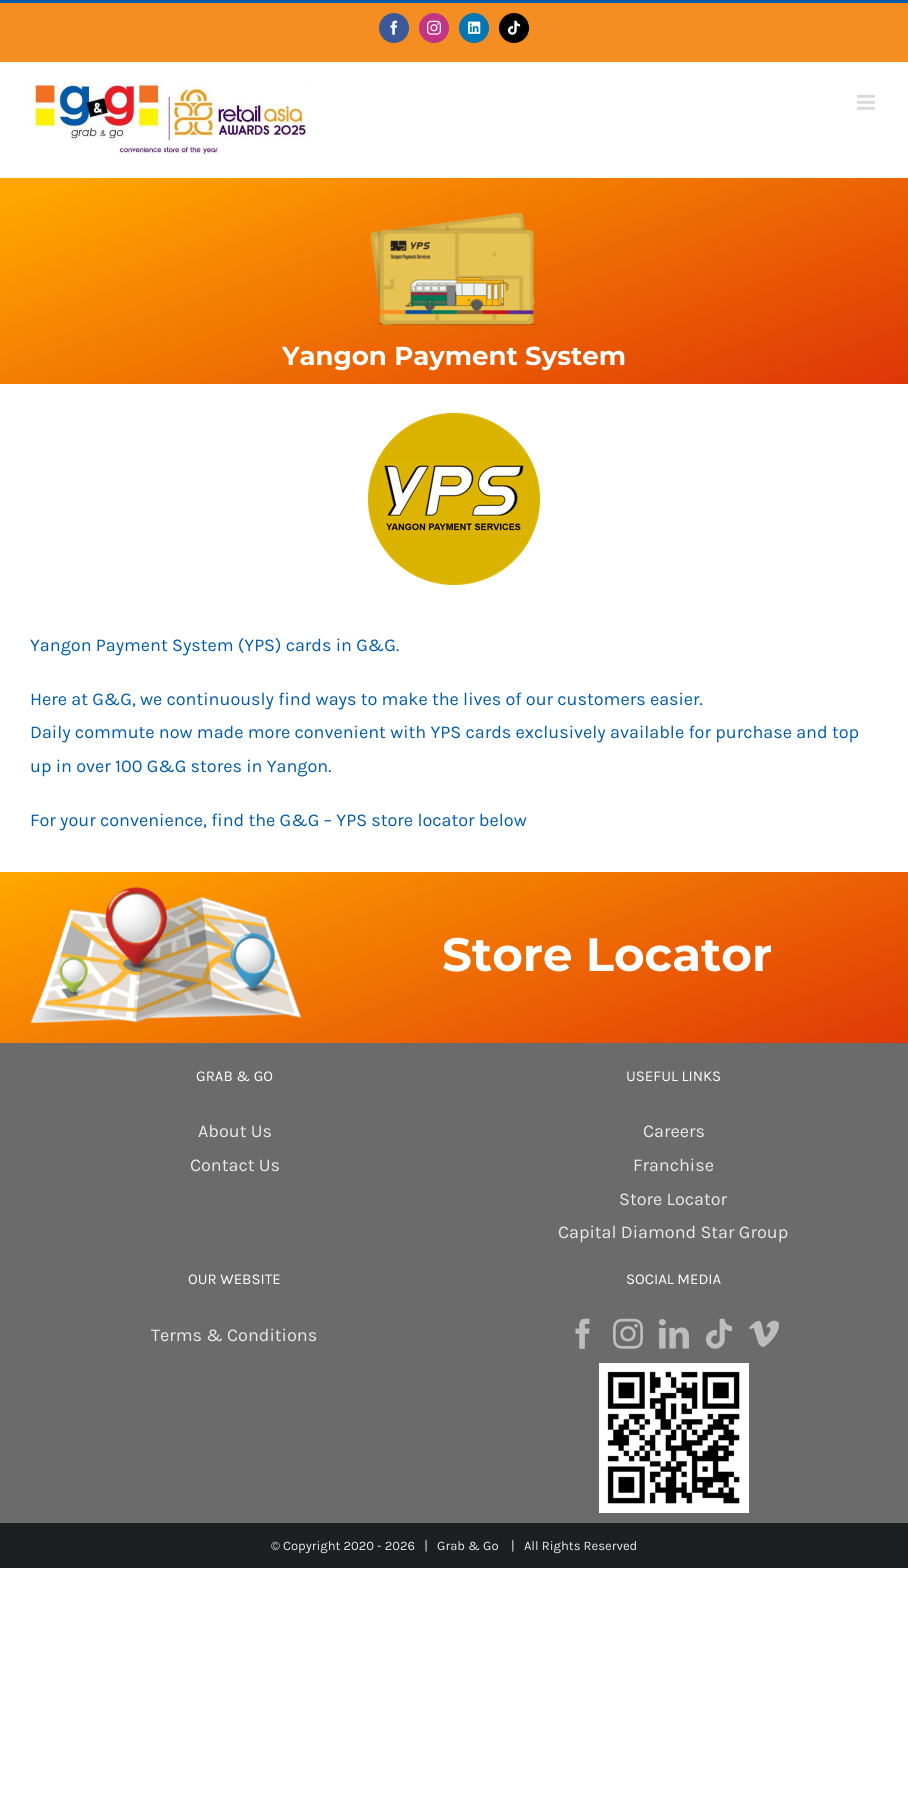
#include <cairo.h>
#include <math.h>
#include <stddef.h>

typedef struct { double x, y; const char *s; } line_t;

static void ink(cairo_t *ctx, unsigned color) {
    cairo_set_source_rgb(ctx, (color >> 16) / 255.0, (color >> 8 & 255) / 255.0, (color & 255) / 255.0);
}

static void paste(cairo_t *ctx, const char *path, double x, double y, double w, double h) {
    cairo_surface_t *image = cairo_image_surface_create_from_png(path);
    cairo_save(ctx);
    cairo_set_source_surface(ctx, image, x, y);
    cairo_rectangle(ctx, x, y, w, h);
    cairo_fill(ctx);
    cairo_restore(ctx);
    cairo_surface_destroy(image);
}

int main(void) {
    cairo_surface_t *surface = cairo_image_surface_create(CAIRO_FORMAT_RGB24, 908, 1820);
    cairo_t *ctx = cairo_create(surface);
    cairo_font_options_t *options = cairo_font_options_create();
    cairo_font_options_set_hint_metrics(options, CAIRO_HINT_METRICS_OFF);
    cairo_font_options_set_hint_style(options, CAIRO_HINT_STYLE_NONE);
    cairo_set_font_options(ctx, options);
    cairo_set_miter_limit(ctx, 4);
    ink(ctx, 0xFFFFFF);
    cairo_paint(ctx);
    ink(ctx, 0xF48E23);
    cairo_rectangle(ctx, 0, 3, 908, 59);
    cairo_fill(ctx);
    ink(ctx, 0x005BAA);
    cairo_rectangle(ctx, 0, 0, 908, 3);
    cairo_fill(ctx);
    ink(ctx, 0x3B5998);
    cairo_arc(ctx, 394, 28, 14.5, 0, 2 * M_PI);
    cairo_fill_preserve(ctx);
    cairo_set_line_width(ctx, 1);
    cairo_stroke(ctx);
    paste(ctx, "media/1.png", 390, 20, 8, 15);
    ink(ctx, 0xC13584);
    cairo_arc(ctx, 434, 28, 14.5, 0, 2 * M_PI);
    cairo_fill_preserve(ctx);
    cairo_stroke(ctx);
    paste(ctx, "media/2.png", 427, 20, 14, 15);
    ink(ctx, 0x0077B5);
    cairo_arc(ctx, 474, 28, 14.5, 0, 2 * M_PI);
    cairo_fill_preserve(ctx);
    cairo_stroke(ctx);
    paste(ctx, "media/3.png", 468, 21, 13, 13);
    ink(ctx, 0x010101);
    cairo_arc(ctx, 514, 28, 14.5, 0, 2 * M_PI);
    cairo_fill_preserve(ctx);
    cairo_stroke(ctx);
    paste(ctx, "media/4.png", 507, 20, 14, 15);
    paste(ctx, "media/5.png", 30, 82, 278, 73);
    paste(ctx, "media/6.png", 857, 94, 18, 16);
    paste(ctx, "media/7.png", 0, 178, 908, 206);
    paste(ctx, "media/8.png", 370, 212, 171, 114);
    cairo_select_font_face(ctx, "Montserrat", CAIRO_FONT_SLANT_NORMAL, CAIRO_FONT_WEIGHT_BOLD);
    cairo_set_font_size(ctx, 26);
    ink(ctx, 0xFFFFFF);
    cairo_move_to(ctx, 282, 365);
    cairo_show_text(ctx, "Yangon Payment System");
    paste(ctx, "media/9.png", 367, 412, 174, 174);
    cairo_select_font_face(ctx, "Karla", CAIRO_FONT_SLANT_NORMAL, CAIRO_FONT_WEIGHT_NORMAL);
    cairo_set_font_size(ctx, 18);
    ink(ctx, 0x005BAA);
    {
        static const line_t items[] = {
            {30, 651, "Yangon Payment System (YPS) cards in G&G."},
            {30, 705, "Here at G&G, we continuously find ways to make the lives of our customers easier."},
            {30, 738, "Daily commute now made more convenient with YPS cards exclusively available for purchase and top"},
            {30, 772, "up in over 100 G&G stores in Yangon."},
            {30, 826, "For your convenience, find the G&G – YPS store locator below"},
        };
        for (size_t i = 0; i < sizeof items / sizeof *items; i++) {
            cairo_move_to(ctx, items[i].x, items[i].y);
            cairo_show_text(ctx, items[i].s);
        }
    }
    paste(ctx, "media/10.png", 0, 872, 908, 171);
    paste(ctx, "media/11.png", 30, 887, 271, 136);
    cairo_select_font_face(ctx, "Montserrat", CAIRO_FONT_SLANT_NORMAL, CAIRO_FONT_WEIGHT_BOLD);
    cairo_set_font_size(ctx, 46.75);
    ink(ctx, 0xFFFFFF);
    cairo_move_to(ctx, 442, 971);
    cairo_show_text(ctx, "Store Locator");
    ink(ctx, 0x6B6B6B);
    cairo_rectangle(ctx, 0, 1043, 908, 480);
    cairo_fill(ctx);
    cairo_select_font_face(ctx, "Karla", CAIRO_FONT_SLANT_NORMAL, CAIRO_FONT_WEIGHT_NORMAL);
    cairo_set_font_size(ctx, 15);
    ink(ctx, 0xFFFFFF);
    cairo_move_to(ctx, 196, 1081);
    cairo_show_text(ctx, "GRAB & GO");
    cairo_set_font_size(ctx, 18);
    ink(ctx, 0xEAEAEA);
    cairo_move_to(ctx, 198, 1137);
    cairo_show_text(ctx, "About Us");
    cairo_move_to(ctx, 190, 1171);
    cairo_show_text(ctx, "Contact Us");
    cairo_set_font_size(ctx, 15);
    ink(ctx, 0xFFFFFF);
    cairo_move_to(ctx, 626, 1081);
    cairo_show_text(ctx, "USEFUL LINKS");
    cairo_set_font_size(ctx, 18);
    ink(ctx, 0xEAEAEA);
    {
        static const line_t items[] = {
            {643, 1137, "Careers"},
            {633, 1171, "Franchise"},
            {619, 1205, "Store Locator"},
            {558, 1238, "Capital Diamond Star Group"},
        };
        for (size_t i = 0; i < sizeof items / sizeof *items; i++) {
            cairo_move_to(ctx, items[i].x, items[i].y);
            cairo_show_text(ctx, items[i].s);
        }
    }
    cairo_set_font_size(ctx, 15);
    ink(ctx, 0xFFFFFF);
    cairo_move_to(ctx, 188, 1284);
    cairo_show_text(ctx, "OUR WEBSITE");
    cairo_set_font_size(ctx, 18);
    ink(ctx, 0xEAEAEA);
    cairo_move_to(ctx, 151, 1341);
    cairo_show_text(ctx, "Terms & Conditions");
    cairo_set_font_size(ctx, 15);
    ink(ctx, 0xFFFFFF);
    cairo_move_to(ctx, 626, 1284);
    cairo_show_text(ctx, "SOCIAL MEDIA");
    paste(ctx, "media/12.png", 575, 1318, 15, 31);
    paste(ctx, "media/13.png", 613, 1318, 30, 31);
    paste(ctx, "media/14.png", 659, 1319, 30, 30);
    paste(ctx, "media/15.png", 706, 1318, 26, 31);
    paste(ctx, "media/16.png", 749, 1320, 30, 27);
    paste(ctx, "media/17.png", 599, 1363, 150, 150);
    ink(ctx, 0x1D1F22);
    cairo_rectangle(ctx, 0, 1523, 908, 45);
    cairo_fill(ctx);
    cairo_set_font_size(ctx, 13);
    ink(ctx, 0xEAEAEA);
    cairo_move_to(ctx, 271, 1550);
    cairo_show_text(ctx, "© Copyright 2020 - 2026   |   Grab & Go");
    cairo_move_to(ctx, 511, 1550);
    cairo_show_text(ctx, "|   All Rights Reserved");
    cairo_surface_write_to_png(surface, "image.png");
    cairo_font_options_destroy(options);
    cairo_destroy(ctx);
    cairo_surface_destroy(surface);
    return 0;
}
